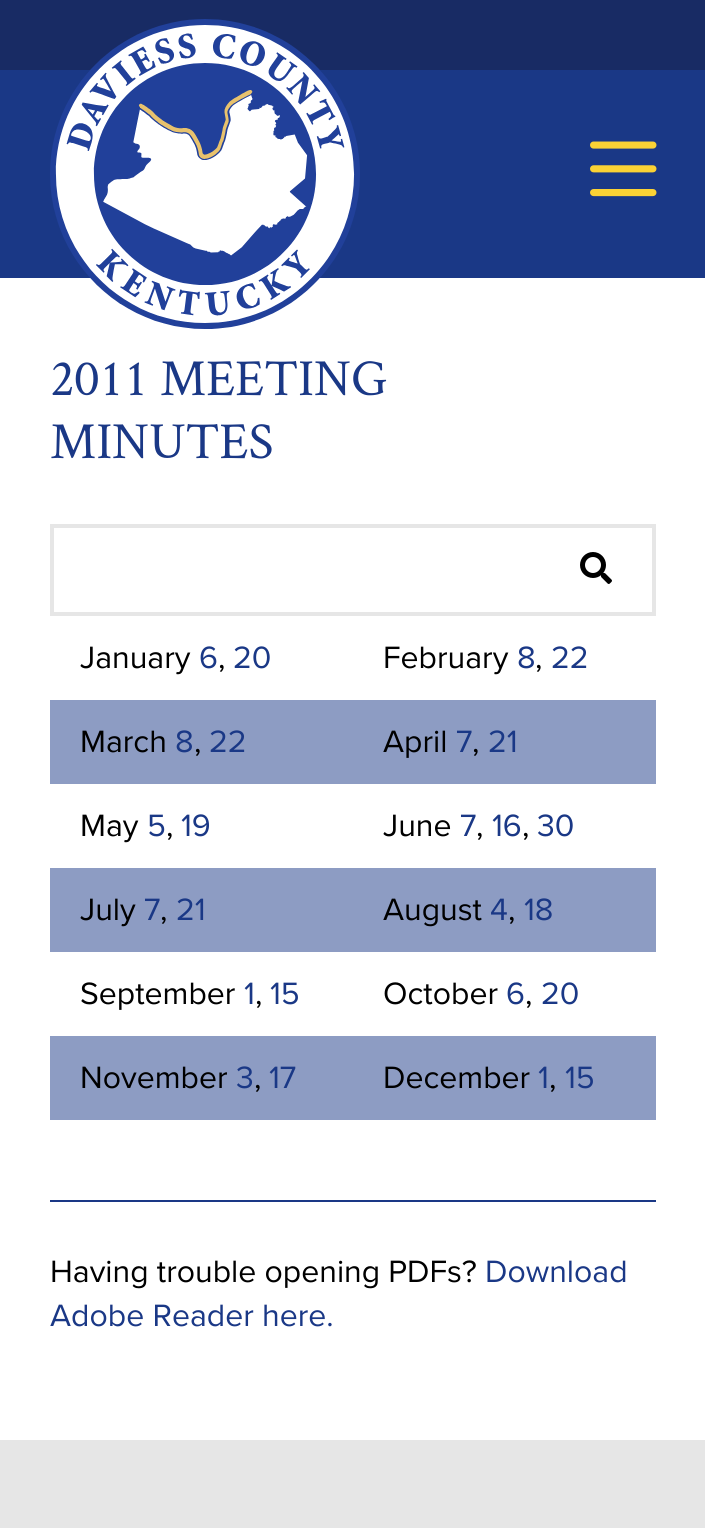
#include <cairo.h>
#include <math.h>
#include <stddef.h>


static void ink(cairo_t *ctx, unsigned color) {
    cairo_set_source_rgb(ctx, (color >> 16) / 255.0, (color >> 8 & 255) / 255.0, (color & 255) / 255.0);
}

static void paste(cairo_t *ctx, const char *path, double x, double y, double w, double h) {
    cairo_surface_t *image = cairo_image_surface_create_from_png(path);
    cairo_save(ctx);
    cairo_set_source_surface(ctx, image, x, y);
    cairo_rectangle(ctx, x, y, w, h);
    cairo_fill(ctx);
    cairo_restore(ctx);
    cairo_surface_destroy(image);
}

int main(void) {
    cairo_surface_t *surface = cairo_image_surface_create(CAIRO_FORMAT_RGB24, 705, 1528);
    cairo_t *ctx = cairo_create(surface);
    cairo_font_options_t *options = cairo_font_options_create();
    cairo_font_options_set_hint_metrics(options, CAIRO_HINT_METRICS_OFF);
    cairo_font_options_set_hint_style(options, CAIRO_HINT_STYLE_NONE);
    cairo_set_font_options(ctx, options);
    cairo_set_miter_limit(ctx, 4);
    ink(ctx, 0x1A3886);
    cairo_paint(ctx);
    ink(ctx, 0x182B64);
    cairo_rectangle(ctx, 0, 0, 705, 70);
    cairo_fill(ctx);
    ink(ctx, 0xFFFFFF);
    cairo_rectangle(ctx, 0, 278, 705, 1162);
    cairo_fill(ctx);
    paste(ctx, "media/1.png", 50, 19, 310, 310);
    paste(ctx, "media/2.png", 590, 141, 67, 56);
    cairo_select_font_face(ctx, "Crimson Text", CAIRO_FONT_SLANT_NORMAL, CAIRO_FONT_WEIGHT_NORMAL);
    cairo_set_font_size(ctx, 52);
    ink(ctx, 0x1A3886);
    cairo_move_to(ctx, 50, 395);
    cairo_show_text(ctx, "2011 MEETING");
    cairo_move_to(ctx, 50, 458);
    cairo_show_text(ctx, "MINUTES");
    cairo_rectangle(ctx, 52, 526, 602, 88);
    ink(ctx, 0xE6E6E6);
    cairo_set_line_width(ctx, 4);
    cairo_stroke(ctx);
    paste(ctx, "media/3.png", 580, 552, 32, 32);
    cairo_select_font_face(ctx, "Proxima Nova", CAIRO_FONT_SLANT_NORMAL, CAIRO_FONT_WEIGHT_NORMAL);
    cairo_set_font_size(ctx, 32);
    ink(ctx, 0x000000);
    cairo_move_to(ctx, 80, 668);
    cairo_show_text(ctx, "January");
    ink(ctx, 0x1A3886);
    cairo_move_to(ctx, 199, 668);
    cairo_show_text(ctx, "6");
    ink(ctx, 0x000000);
    cairo_move_to(ctx, 218, 668);
    cairo_show_text(ctx, ",");
    ink(ctx, 0x1A3886);
    cairo_move_to(ctx, 233, 668);
    cairo_show_text(ctx, "20");
    ink(ctx, 0x000000);
    cairo_move_to(ctx, 383, 668);
    cairo_show_text(ctx, "February");
    ink(ctx, 0x1A3886);
    cairo_move_to(ctx, 517, 668);
    cairo_show_text(ctx, "8");
    ink(ctx, 0x000000);
    cairo_move_to(ctx, 535, 668);
    cairo_show_text(ctx, ",");
    ink(ctx, 0x1A3886);
    cairo_move_to(ctx, 551, 668);
    cairo_show_text(ctx, "22");
    ink(ctx, 0x8D9CC3);
    cairo_rectangle(ctx, 50, 700, 606, 84);
    cairo_fill(ctx);
    ink(ctx, 0x000000);
    cairo_move_to(ctx, 80, 752);
    cairo_show_text(ctx, "March");
    ink(ctx, 0x1A3886);
    cairo_move_to(ctx, 175, 752);
    cairo_show_text(ctx, "8");
    ink(ctx, 0x000000);
    cairo_move_to(ctx, 194, 752);
    cairo_show_text(ctx, ",");
    ink(ctx, 0x1A3886);
    cairo_move_to(ctx, 209, 752);
    cairo_show_text(ctx, "22");
    ink(ctx, 0x000000);
    cairo_move_to(ctx, 383, 752);
    cairo_show_text(ctx, "April");
    ink(ctx, 0x1A3886);
    cairo_move_to(ctx, 456, 752);
    cairo_show_text(ctx, "7");
    ink(ctx, 0x000000);
    cairo_move_to(ctx, 472, 752);
    cairo_show_text(ctx, ",");
    ink(ctx, 0x1A3886);
    cairo_move_to(ctx, 488, 752);
    cairo_show_text(ctx, "21");
    ink(ctx, 0x000000);
    cairo_move_to(ctx, 80, 836);
    cairo_show_text(ctx, "May");
    ink(ctx, 0x1A3886);
    cairo_move_to(ctx, 147, 836);
    cairo_show_text(ctx, "5");
    ink(ctx, 0x000000);
    cairo_move_to(ctx, 166, 836);
    cairo_show_text(ctx, ",");
    ink(ctx, 0x1A3886);
    cairo_move_to(ctx, 181, 836);
    cairo_show_text(ctx, "19");
    ink(ctx, 0x000000);
    cairo_move_to(ctx, 383, 836);
    cairo_show_text(ctx, "June");
    ink(ctx, 0x1A3886);
    cairo_move_to(ctx, 460, 836);
    cairo_show_text(ctx, "7");
    ink(ctx, 0x000000);
    cairo_move_to(ctx, 476, 836);
    cairo_show_text(ctx, ",");
    ink(ctx, 0x1A3886);
    cairo_move_to(ctx, 492, 836);
    cairo_show_text(ctx, "16");
    ink(ctx, 0x000000);
    cairo_move_to(ctx, 522, 836);
    cairo_show_text(ctx, ",");
    ink(ctx, 0x1A3886);
    cairo_move_to(ctx, 537, 836);
    cairo_show_text(ctx, "30");
    ink(ctx, 0x8D9CC3);
    cairo_rectangle(ctx, 50, 868, 606, 84);
    cairo_fill(ctx);
    ink(ctx, 0x000000);
    cairo_move_to(ctx, 80, 920);
    cairo_show_text(ctx, "July");
    ink(ctx, 0x1A3886);
    cairo_move_to(ctx, 144, 920);
    cairo_show_text(ctx, "7");
    ink(ctx, 0x000000);
    cairo_move_to(ctx, 160, 920);
    cairo_show_text(ctx, ",");
    ink(ctx, 0x1A3886);
    cairo_move_to(ctx, 176, 920);
    cairo_show_text(ctx, "21");
    ink(ctx, 0x000000);
    cairo_move_to(ctx, 383, 920);
    cairo_show_text(ctx, "August");
    ink(ctx, 0x1A3886);
    cairo_move_to(ctx, 490, 920);
    cairo_show_text(ctx, "4");
    ink(ctx, 0x000000);
    cairo_move_to(ctx, 508, 920);
    cairo_show_text(ctx, ",");
    ink(ctx, 0x1A3886);
    cairo_move_to(ctx, 524, 920);
    cairo_show_text(ctx, "18");
    ink(ctx, 0x000000);
    cairo_move_to(ctx, 80, 1004);
    cairo_show_text(ctx, "September");
    ink(ctx, 0x1A3886);
    cairo_move_to(ctx, 244, 1004);
    cairo_show_text(ctx, "1");
    ink(ctx, 0x000000);
    cairo_move_to(ctx, 255, 1004);
    cairo_show_text(ctx, ",");
    ink(ctx, 0x1A3886);
    cairo_move_to(ctx, 270, 1004);
    cairo_show_text(ctx, "15");
    ink(ctx, 0x000000);
    cairo_move_to(ctx, 383, 1004);
    cairo_show_text(ctx, "October");
    ink(ctx, 0x1A3886);
    cairo_move_to(ctx, 506, 1004);
    cairo_show_text(ctx, "6");
    ink(ctx, 0x000000);
    cairo_move_to(ctx, 525, 1004);
    cairo_show_text(ctx, ",");
    ink(ctx, 0x1A3886);
    cairo_move_to(ctx, 541, 1004);
    cairo_show_text(ctx, "20");
    ink(ctx, 0x8D9CC3);
    cairo_rectangle(ctx, 50, 1036, 606, 84);
    cairo_fill(ctx);
    ink(ctx, 0x000000);
    cairo_move_to(ctx, 80, 1088);
    cairo_show_text(ctx, "November");
    ink(ctx, 0x1A3886);
    cairo_move_to(ctx, 236, 1088);
    cairo_show_text(ctx, "3");
    ink(ctx, 0x000000);
    cairo_move_to(ctx, 254, 1088);
    cairo_show_text(ctx, ",");
    ink(ctx, 0x1A3886);
    cairo_move_to(ctx, 269, 1088);
    cairo_show_text(ctx, "17");
    ink(ctx, 0x000000);
    cairo_move_to(ctx, 383, 1088);
    cairo_show_text(ctx, "December");
    ink(ctx, 0x1A3886);
    cairo_move_to(ctx, 538, 1088);
    cairo_show_text(ctx, "1");
    ink(ctx, 0x000000);
    cairo_move_to(ctx, 549, 1088);
    cairo_show_text(ctx, ",");
    ink(ctx, 0x1A3886);
    cairo_move_to(ctx, 565, 1088);
    cairo_show_text(ctx, "15");
    cairo_rectangle(ctx, 50, 1200, 606, 2);
    cairo_fill(ctx);
    ink(ctx, 0x000000);
    cairo_move_to(ctx, 50, 1282);
    cairo_show_text(ctx, "Having trouble opening PDFs?");
    ink(ctx, 0x1A3886);
    cairo_move_to(ctx, 485, 1282);
    cairo_show_text(ctx, "Download");
    cairo_move_to(ctx, 50, 1326);
    cairo_show_text(ctx, "Adobe Reader here.");
    ink(ctx, 0xE6E6E6);
    cairo_rectangle(ctx, 0, 1440, 705, 88);
    cairo_fill(ctx);
    cairo_surface_write_to_png(surface, "image.png");
    cairo_font_options_destroy(options);
    cairo_destroy(ctx);
    cairo_surface_destroy(surface);
    return 0;
}
